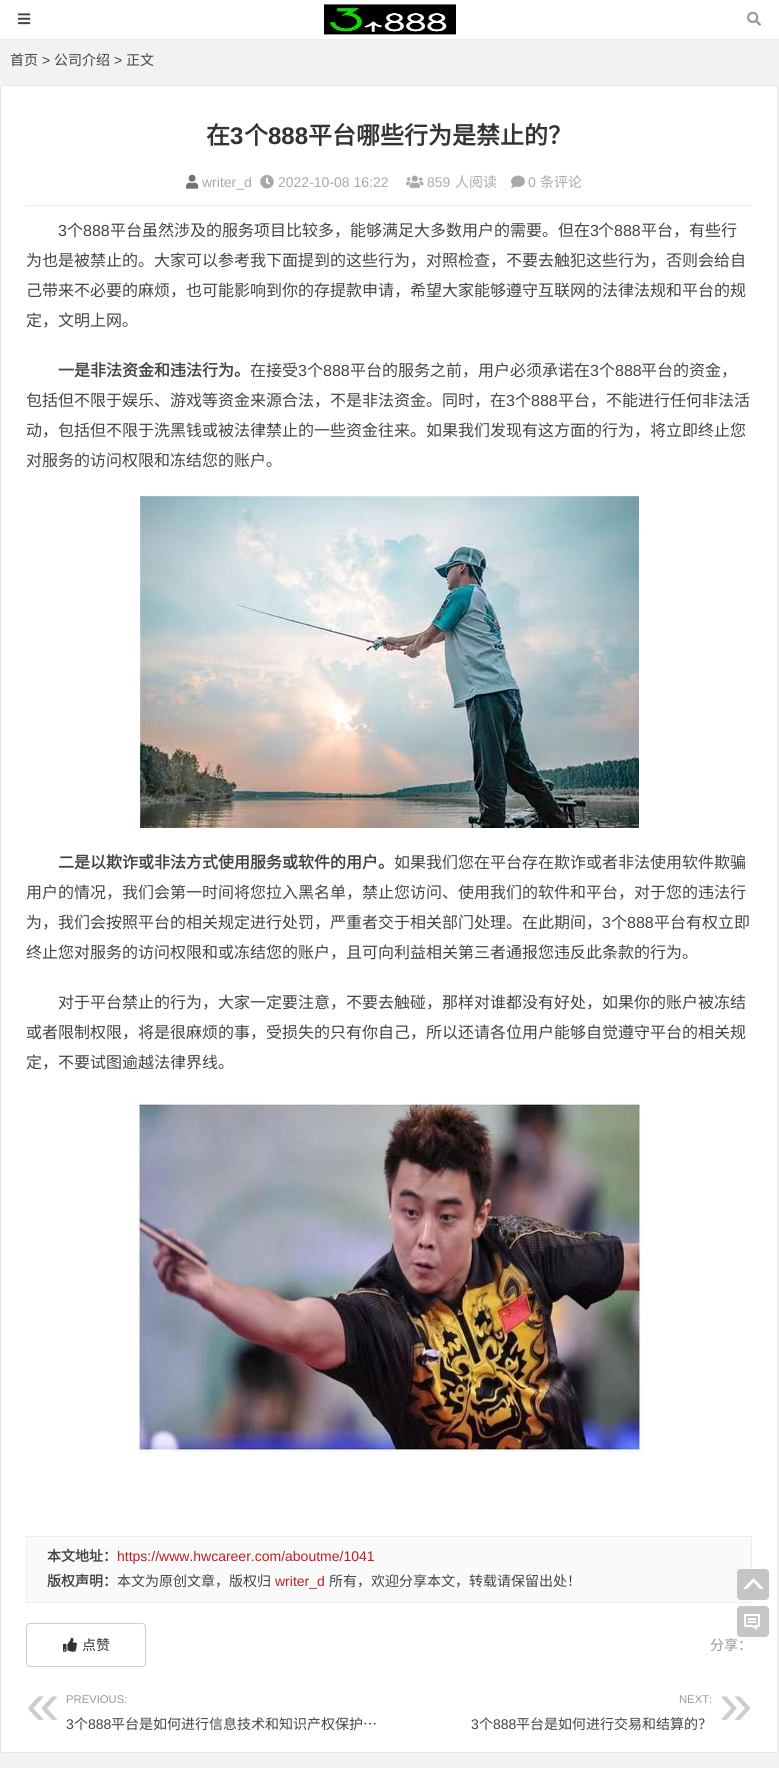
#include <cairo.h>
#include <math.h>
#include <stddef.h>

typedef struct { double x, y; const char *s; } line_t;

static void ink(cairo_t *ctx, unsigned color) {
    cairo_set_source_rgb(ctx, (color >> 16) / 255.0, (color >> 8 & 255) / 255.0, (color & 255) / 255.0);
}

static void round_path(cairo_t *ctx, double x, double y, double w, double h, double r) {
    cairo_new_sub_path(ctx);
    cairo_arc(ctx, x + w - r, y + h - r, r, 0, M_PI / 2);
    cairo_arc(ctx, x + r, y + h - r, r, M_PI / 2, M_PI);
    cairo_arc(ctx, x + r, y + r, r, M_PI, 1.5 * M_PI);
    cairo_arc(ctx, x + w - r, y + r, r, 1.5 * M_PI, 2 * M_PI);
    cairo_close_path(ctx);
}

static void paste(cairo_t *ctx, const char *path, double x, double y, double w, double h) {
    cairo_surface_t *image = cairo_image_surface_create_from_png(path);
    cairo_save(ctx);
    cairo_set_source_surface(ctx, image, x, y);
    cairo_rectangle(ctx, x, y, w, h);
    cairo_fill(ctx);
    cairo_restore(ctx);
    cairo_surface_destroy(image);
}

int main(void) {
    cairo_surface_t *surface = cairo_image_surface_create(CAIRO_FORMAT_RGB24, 779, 1768);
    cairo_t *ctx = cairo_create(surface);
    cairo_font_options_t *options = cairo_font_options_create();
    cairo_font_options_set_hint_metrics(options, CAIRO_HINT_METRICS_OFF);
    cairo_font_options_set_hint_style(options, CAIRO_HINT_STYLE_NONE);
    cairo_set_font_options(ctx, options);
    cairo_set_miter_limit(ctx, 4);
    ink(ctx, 0xF2F2F2);
    cairo_paint(ctx);
    ink(ctx, 0xFFFFFF);
    cairo_rectangle(ctx, 0, 0, 779, 39);
    cairo_fill(ctx);
    ink(ctx, 0xEBEBEB);
    cairo_rectangle(ctx, 0, 39, 779, 1);
    cairo_fill(ctx);
    paste(ctx, "media/1.png", 18, 13, 13, 12);
    paste(ctx, "media/2.png", 324, 4, 132, 31);
    paste(ctx, "media/3.png", 747, 11, 14, 15);
    cairo_select_font_face(ctx, "Noto Sans CJK SC", CAIRO_FONT_SLANT_NORMAL, CAIRO_FONT_WEIGHT_NORMAL);
    cairo_set_font_size(ctx, 14);
    ink(ctx, 0x444444);
    cairo_move_to(ctx, 10, 65);
    cairo_show_text(ctx, "首页");
    cairo_select_font_face(ctx, "Liberation Sans", CAIRO_FONT_SLANT_NORMAL, CAIRO_FONT_WEIGHT_NORMAL);
    cairo_move_to(ctx, 42, 65);
    cairo_show_text(ctx, ">");
    cairo_select_font_face(ctx, "Noto Sans CJK SC", CAIRO_FONT_SLANT_NORMAL, CAIRO_FONT_WEIGHT_NORMAL);
    cairo_move_to(ctx, 54, 65);
    cairo_show_text(ctx, "公司介绍");
    cairo_select_font_face(ctx, "Liberation Sans", CAIRO_FONT_SLANT_NORMAL, CAIRO_FONT_WEIGHT_NORMAL);
    cairo_move_to(ctx, 114, 65);
    cairo_show_text(ctx, ">");
    cairo_select_font_face(ctx, "Noto Sans CJK SC", CAIRO_FONT_SLANT_NORMAL, CAIRO_FONT_WEIGHT_NORMAL);
    cairo_move_to(ctx, 126, 65);
    cairo_show_text(ctx, "正文");
    ink(ctx, 0xFFFFFF);
    round_path(ctx, 0.5, 85.5, 777, 1667, 1.5);
    cairo_fill_preserve(ctx);
    ink(ctx, 0xE6E6E6);
    cairo_set_line_width(ctx, 1);
    cairo_stroke(ctx);
    cairo_select_font_face(ctx, "Noto Sans CJK SC", CAIRO_FONT_SLANT_NORMAL, CAIRO_FONT_WEIGHT_BOLD);
    cairo_set_font_size(ctx, 24);
    ink(ctx, 0x333333);
    cairo_move_to(ctx, 206, 144);
    cairo_show_text(ctx, "在");
    cairo_select_font_face(ctx, "Liberation Sans", CAIRO_FONT_SLANT_NORMAL, CAIRO_FONT_WEIGHT_BOLD);
    cairo_move_to(ctx, 230, 144);
    cairo_show_text(ctx, "3");
    cairo_select_font_face(ctx, "Noto Sans CJK SC", CAIRO_FONT_SLANT_NORMAL, CAIRO_FONT_WEIGHT_BOLD);
    cairo_move_to(ctx, 244, 144);
    cairo_show_text(ctx, "个");
    cairo_select_font_face(ctx, "Liberation Sans", CAIRO_FONT_SLANT_NORMAL, CAIRO_FONT_WEIGHT_BOLD);
    cairo_move_to(ctx, 268, 144);
    cairo_show_text(ctx, "888");
    cairo_select_font_face(ctx, "Noto Sans CJK SC", CAIRO_FONT_SLANT_NORMAL, CAIRO_FONT_WEIGHT_BOLD);
    cairo_move_to(ctx, 308, 144);
    cairo_show_text(ctx, "平台哪些行为是禁止的？");
    ink(ctx, 0xEDEDED);
    cairo_rectangle(ctx, 26, 205, 726, 1);
    cairo_fill(ctx);
    paste(ctx, "media/4.png", 186, 174, 13, 15);
    cairo_select_font_face(ctx, "Liberation Sans", CAIRO_FONT_SLANT_NORMAL, CAIRO_FONT_WEIGHT_NORMAL);
    cairo_set_font_size(ctx, 14);
    ink(ctx, 0xA9A9A9);
    cairo_move_to(ctx, 202, 187);
    cairo_show_text(ctx, "writer_d");
    paste(ctx, "media/5.png", 260, 175, 14, 14);
    cairo_move_to(ctx, 278, 187);
    cairo_show_text(ctx, "2022-10-08 16:22");
    paste(ctx, "media/6.png", 406, 175, 18, 13);
    cairo_move_to(ctx, 427, 187);
    cairo_show_text(ctx, "859");
    cairo_select_font_face(ctx, "Noto Sans CJK SC", CAIRO_FONT_SLANT_NORMAL, CAIRO_FONT_WEIGHT_NORMAL);
    cairo_move_to(ctx, 455, 187);
    cairo_show_text(ctx, "人阅读");
    paste(ctx, "media/7.png", 511, 175, 14, 13);
    cairo_select_font_face(ctx, "Liberation Sans", CAIRO_FONT_SLANT_NORMAL, CAIRO_FONT_WEIGHT_NORMAL);
    cairo_move_to(ctx, 528, 187);
    cairo_show_text(ctx, "0");
    cairo_select_font_face(ctx, "Noto Sans CJK SC", CAIRO_FONT_SLANT_NORMAL, CAIRO_FONT_WEIGHT_NORMAL);
    cairo_move_to(ctx, 540, 187);
    cairo_show_text(ctx, "条评论");
    cairo_select_font_face(ctx, "Liberation Sans", CAIRO_FONT_SLANT_NORMAL, CAIRO_FONT_WEIGHT_NORMAL);
    cairo_set_font_size(ctx, 16);
    ink(ctx, 0x444444);
    cairo_move_to(ctx, 58, 236);
    cairo_show_text(ctx, "3");
    cairo_select_font_face(ctx, "Noto Sans CJK SC", CAIRO_FONT_SLANT_NORMAL, CAIRO_FONT_WEIGHT_NORMAL);
    cairo_move_to(ctx, 67, 236);
    cairo_show_text(ctx, "个");
    cairo_select_font_face(ctx, "Liberation Sans", CAIRO_FONT_SLANT_NORMAL, CAIRO_FONT_WEIGHT_NORMAL);
    cairo_move_to(ctx, 83, 236);
    cairo_show_text(ctx, "888");
    cairo_select_font_face(ctx, "Noto Sans CJK SC", CAIRO_FONT_SLANT_NORMAL, CAIRO_FONT_WEIGHT_NORMAL);
    cairo_move_to(ctx, 110, 236);
    cairo_show_text(ctx, "平台虽然涉及的服务项目比较多，能够满足大多数用户的需要。但在");
    cairo_select_font_face(ctx, "Liberation Sans", CAIRO_FONT_SLANT_NORMAL, CAIRO_FONT_WEIGHT_NORMAL);
    cairo_move_to(ctx, 590, 236);
    cairo_show_text(ctx, "3");
    cairo_select_font_face(ctx, "Noto Sans CJK SC", CAIRO_FONT_SLANT_NORMAL, CAIRO_FONT_WEIGHT_NORMAL);
    cairo_move_to(ctx, 598, 236);
    cairo_show_text(ctx, "个");
    cairo_select_font_face(ctx, "Liberation Sans", CAIRO_FONT_SLANT_NORMAL, CAIRO_FONT_WEIGHT_NORMAL);
    cairo_move_to(ctx, 614, 236);
    cairo_show_text(ctx, "888");
    cairo_select_font_face(ctx, "Noto Sans CJK SC", CAIRO_FONT_SLANT_NORMAL, CAIRO_FONT_WEIGHT_NORMAL);
    {
        static const line_t items[] = {
            {641, 236, "平台，有些行"},
            {26, 266, "为也是被禁止的。大家可以参考我下面提到的这些行为，对照检查，不要去触犯这些行为，否则会给自"},
            {26, 296, "己带来不必要的麻烦，也可能影响到你的存提款申请，希望大家能够遵守互联网的法律法规和平台的规"},
            {26, 326, "定，文明上网。"},
        };
        for (size_t i = 0; i < sizeof items / sizeof *items; i++) {
            cairo_move_to(ctx, items[i].x, items[i].y);
            cairo_show_text(ctx, items[i].s);
        }
    }
    cairo_select_font_face(ctx, "Noto Sans CJK SC", CAIRO_FONT_SLANT_NORMAL, CAIRO_FONT_WEIGHT_BOLD);
    cairo_move_to(ctx, 58, 376);
    cairo_show_text(ctx, "一是非法资金和违法行为。");
    cairo_select_font_face(ctx, "Noto Sans CJK SC", CAIRO_FONT_SLANT_NORMAL, CAIRO_FONT_WEIGHT_NORMAL);
    cairo_move_to(ctx, 250, 376);
    cairo_show_text(ctx, "在接受");
    cairo_select_font_face(ctx, "Liberation Sans", CAIRO_FONT_SLANT_NORMAL, CAIRO_FONT_WEIGHT_NORMAL);
    cairo_move_to(ctx, 298, 376);
    cairo_show_text(ctx, "3");
    cairo_select_font_face(ctx, "Noto Sans CJK SC", CAIRO_FONT_SLANT_NORMAL, CAIRO_FONT_WEIGHT_NORMAL);
    cairo_move_to(ctx, 307, 376);
    cairo_show_text(ctx, "个");
    cairo_select_font_face(ctx, "Liberation Sans", CAIRO_FONT_SLANT_NORMAL, CAIRO_FONT_WEIGHT_NORMAL);
    cairo_move_to(ctx, 323, 376);
    cairo_show_text(ctx, "888");
    cairo_select_font_face(ctx, "Noto Sans CJK SC", CAIRO_FONT_SLANT_NORMAL, CAIRO_FONT_WEIGHT_NORMAL);
    cairo_move_to(ctx, 350, 376);
    cairo_show_text(ctx, "平台的服务之前，用户必须承诺在");
    cairo_select_font_face(ctx, "Liberation Sans", CAIRO_FONT_SLANT_NORMAL, CAIRO_FONT_WEIGHT_NORMAL);
    cairo_move_to(ctx, 590, 376);
    cairo_show_text(ctx, "3");
    cairo_select_font_face(ctx, "Noto Sans CJK SC", CAIRO_FONT_SLANT_NORMAL, CAIRO_FONT_WEIGHT_NORMAL);
    cairo_move_to(ctx, 599, 376);
    cairo_show_text(ctx, "个");
    cairo_select_font_face(ctx, "Liberation Sans", CAIRO_FONT_SLANT_NORMAL, CAIRO_FONT_WEIGHT_NORMAL);
    cairo_move_to(ctx, 615, 376);
    cairo_show_text(ctx, "888");
    cairo_select_font_face(ctx, "Noto Sans CJK SC", CAIRO_FONT_SLANT_NORMAL, CAIRO_FONT_WEIGHT_NORMAL);
    cairo_move_to(ctx, 641, 376);
    cairo_show_text(ctx, "平台的资金，");
    cairo_move_to(ctx, 26, 406);
    cairo_show_text(ctx, "包括但不限于娱乐、游戏等资金来源合法，不是非法资金。同时，在");
    cairo_select_font_face(ctx, "Liberation Sans", CAIRO_FONT_SLANT_NORMAL, CAIRO_FONT_WEIGHT_NORMAL);
    cairo_move_to(ctx, 506, 406);
    cairo_show_text(ctx, "3");
    cairo_select_font_face(ctx, "Noto Sans CJK SC", CAIRO_FONT_SLANT_NORMAL, CAIRO_FONT_WEIGHT_NORMAL);
    cairo_move_to(ctx, 515, 406);
    cairo_show_text(ctx, "个");
    cairo_select_font_face(ctx, "Liberation Sans", CAIRO_FONT_SLANT_NORMAL, CAIRO_FONT_WEIGHT_NORMAL);
    cairo_move_to(ctx, 531, 406);
    cairo_show_text(ctx, "888");
    cairo_select_font_face(ctx, "Noto Sans CJK SC", CAIRO_FONT_SLANT_NORMAL, CAIRO_FONT_WEIGHT_NORMAL);
    {
        static const line_t items[] = {
            {558, 406, "平台，不能进行任何非法活"},
            {26, 436, "动，包括但不限于洗黑钱或被法律禁止的一些资金往来。如果我们发现有这方面的行为，将立即终止您"},
            {26, 466, "对服务的访问权限和冻结您的账户。"},
        };
        for (size_t i = 0; i < sizeof items / sizeof *items; i++) {
            cairo_move_to(ctx, items[i].x, items[i].y);
            cairo_show_text(ctx, items[i].s);
        }
    }
    paste(ctx, "media/8.png", 140, 496, 499, 332);
    cairo_select_font_face(ctx, "Noto Sans CJK SC", CAIRO_FONT_SLANT_NORMAL, CAIRO_FONT_WEIGHT_BOLD);
    cairo_move_to(ctx, 58, 868);
    cairo_show_text(ctx, "二是以欺诈或非法方式使用服务或软件的用户。");
    cairo_select_font_face(ctx, "Noto Sans CJK SC", CAIRO_FONT_SLANT_NORMAL, CAIRO_FONT_WEIGHT_NORMAL);
    {
        static const line_t items[] = {
            {394, 868, "如果我们您在平台存在欺诈或者非法使用软件欺骗"},
            {26, 898, "用户的情况，我们会第一时间将您拉入黑名单，禁止您访问、使用我们的软件和平台，对于您的违法行"},
            {26, 928, "为，我们会按照平台的相关规定进行处罚，严重者交于相关部门处理。在此期间，"},
        };
        for (size_t i = 0; i < sizeof items / sizeof *items; i++) {
            cairo_move_to(ctx, items[i].x, items[i].y);
            cairo_show_text(ctx, items[i].s);
        }
    }
    cairo_select_font_face(ctx, "Liberation Sans", CAIRO_FONT_SLANT_NORMAL, CAIRO_FONT_WEIGHT_NORMAL);
    cairo_move_to(ctx, 602, 928);
    cairo_show_text(ctx, "3");
    cairo_select_font_face(ctx, "Noto Sans CJK SC", CAIRO_FONT_SLANT_NORMAL, CAIRO_FONT_WEIGHT_NORMAL);
    cairo_move_to(ctx, 611, 928);
    cairo_show_text(ctx, "个");
    cairo_select_font_face(ctx, "Liberation Sans", CAIRO_FONT_SLANT_NORMAL, CAIRO_FONT_WEIGHT_NORMAL);
    cairo_move_to(ctx, 627, 928);
    cairo_show_text(ctx, "888");
    cairo_select_font_face(ctx, "Noto Sans CJK SC", CAIRO_FONT_SLANT_NORMAL, CAIRO_FONT_WEIGHT_NORMAL);
    {
        static const line_t items[] = {
            {654, 928, "平台有权立即"},
            {26, 958, "终止您对服务的访问权限和或冻结您的账户，且可向利益相关第三者通报您违反此条款的行为。"},
            {58, 1008, "对于平台禁止的行为，大家一定要注意，不要去触碰，那样对谁都没有好处，如果你的账户被冻结"},
            {26, 1038, "或者限制权限，将是很麻烦的事，受损失的只有你自己，所以还请各位用户能够自觉遵守平台的相关规"},
            {26, 1068, "定，不要试图逾越法律界线。"},
        };
        for (size_t i = 0; i < sizeof items / sizeof *items; i++) {
            cairo_move_to(ctx, items[i].x, items[i].y);
            cairo_show_text(ctx, items[i].s);
        }
    }
    paste(ctx, "media/9.png", 134, 1098, 511, 358);
    ink(ctx, 0xFAFAFA);
    cairo_rectangle(ctx, 26.5, 1536.5, 725, 66);
    cairo_fill_preserve(ctx);
    ink(ctx, 0xECECEC);
    cairo_stroke(ctx);
    cairo_select_font_face(ctx, "Noto Sans CJK SC", CAIRO_FONT_SLANT_NORMAL, CAIRO_FONT_WEIGHT_BOLD);
    cairo_set_font_size(ctx, 14);
    ink(ctx, 0x444444);
    cairo_move_to(ctx, 47, 1561);
    cairo_show_text(ctx, "本文地址：");
    cairo_select_font_face(ctx, "Liberation Sans", CAIRO_FONT_SLANT_NORMAL, CAIRO_FONT_WEIGHT_NORMAL);
    ink(ctx, 0xC01E22);
    cairo_move_to(ctx, 117, 1561);
    cairo_show_text(ctx, "https://www.hwcareer.com/aboutme/1041");
    cairo_select_font_face(ctx, "Noto Sans CJK SC", CAIRO_FONT_SLANT_NORMAL, CAIRO_FONT_WEIGHT_BOLD);
    ink(ctx, 0x444444);
    cairo_move_to(ctx, 47, 1586);
    cairo_show_text(ctx, "版权声明：");
    cairo_select_font_face(ctx, "Noto Sans CJK SC", CAIRO_FONT_SLANT_NORMAL, CAIRO_FONT_WEIGHT_NORMAL);
    cairo_move_to(ctx, 117, 1586);
    cairo_show_text(ctx, "本文为原创文章，版权归");
    cairo_select_font_face(ctx, "Liberation Sans", CAIRO_FONT_SLANT_NORMAL, CAIRO_FONT_WEIGHT_NORMAL);
    ink(ctx, 0xC01E22);
    cairo_move_to(ctx, 275, 1586);
    cairo_show_text(ctx, "writer_d");
    cairo_select_font_face(ctx, "Noto Sans CJK SC", CAIRO_FONT_SLANT_NORMAL, CAIRO_FONT_WEIGHT_NORMAL);
    ink(ctx, 0x444444);
    cairo_move_to(ctx, 329, 1586);
    cairo_show_text(ctx, "所有，欢迎分享本文，转载请保留出处！");
    round_path(ctx, 26.5, 1623.5, 119, 43, 3.5);
    ink(ctx, 0xCCCCCC);
    cairo_stroke(ctx);
    paste(ctx, "media/10.png", 63, 1637, 14, 15);
    ink(ctx, 0x333333);
    cairo_move_to(ctx, 82, 1650);
    cairo_show_text(ctx, "点赞");
    ink(ctx, 0x999999);
    cairo_move_to(ctx, 710, 1650);
    cairo_show_text(ctx, "分享：");
    cairo_select_font_face(ctx, "Liberation Sans", CAIRO_FONT_SLANT_NORMAL, CAIRO_FONT_WEIGHT_NORMAL);
    cairo_set_font_size(ctx, 60);
    ink(ctx, 0xCCCCCC);
    cairo_move_to(ctx, 26, 1724);
    cairo_show_text(ctx, "«");
    cairo_set_font_size(ctx, 11.25);
    ink(ctx, 0x999999);
    cairo_move_to(ctx, 66, 1703);
    cairo_show_text(ctx, "PREVIOUS:");
    cairo_set_font_size(ctx, 14);
    ink(ctx, 0x444444);
    cairo_move_to(ctx, 66, 1729);
    cairo_show_text(ctx, "3");
    cairo_select_font_face(ctx, "Noto Sans CJK SC", CAIRO_FONT_SLANT_NORMAL, CAIRO_FONT_WEIGHT_NORMAL);
    cairo_move_to(ctx, 74, 1729);
    cairo_show_text(ctx, "个");
    cairo_select_font_face(ctx, "Liberation Sans", CAIRO_FONT_SLANT_NORMAL, CAIRO_FONT_WEIGHT_NORMAL);
    cairo_move_to(ctx, 88, 1729);
    cairo_show_text(ctx, "888");
    cairo_select_font_face(ctx, "Noto Sans CJK SC", CAIRO_FONT_SLANT_NORMAL, CAIRO_FONT_WEIGHT_NORMAL);
    cairo_move_to(ctx, 111, 1729);
    cairo_show_text(ctx, "平台是如何进行信息技术和知识产权保护…");
    cairo_select_font_face(ctx, "Liberation Sans", CAIRO_FONT_SLANT_NORMAL, CAIRO_FONT_WEIGHT_NORMAL);
    cairo_set_font_size(ctx, 11.25);
    ink(ctx, 0x999999);
    cairo_move_to(ctx, 679, 1703);
    cairo_show_text(ctx, "NEXT:");
    cairo_set_font_size(ctx, 60);
    ink(ctx, 0xCCCCCC);
    cairo_move_to(ctx, 719, 1724);
    cairo_show_text(ctx, "»");
    cairo_set_font_size(ctx, 14);
    ink(ctx, 0x444444);
    cairo_move_to(ctx, 471, 1729);
    cairo_show_text(ctx, "3");
    cairo_select_font_face(ctx, "Noto Sans CJK SC", CAIRO_FONT_SLANT_NORMAL, CAIRO_FONT_WEIGHT_NORMAL);
    cairo_move_to(ctx, 479, 1729);
    cairo_show_text(ctx, "个");
    cairo_select_font_face(ctx, "Liberation Sans", CAIRO_FONT_SLANT_NORMAL, CAIRO_FONT_WEIGHT_NORMAL);
    cairo_move_to(ctx, 493, 1729);
    cairo_show_text(ctx, "888");
    cairo_select_font_face(ctx, "Noto Sans CJK SC", CAIRO_FONT_SLANT_NORMAL, CAIRO_FONT_WEIGHT_NORMAL);
    cairo_move_to(ctx, 516, 1729);
    cairo_show_text(ctx, "平台是如何进行交易和结算的？");
    paste(ctx, "media/11.png", 737, 1569, 32, 31);
    paste(ctx, "media/12.png", 737, 1606, 32, 31);
    cairo_surface_write_to_png(surface, "image.png");
    cairo_font_options_destroy(options);
    cairo_destroy(ctx);
    cairo_surface_destroy(surface);
    return 0;
}
